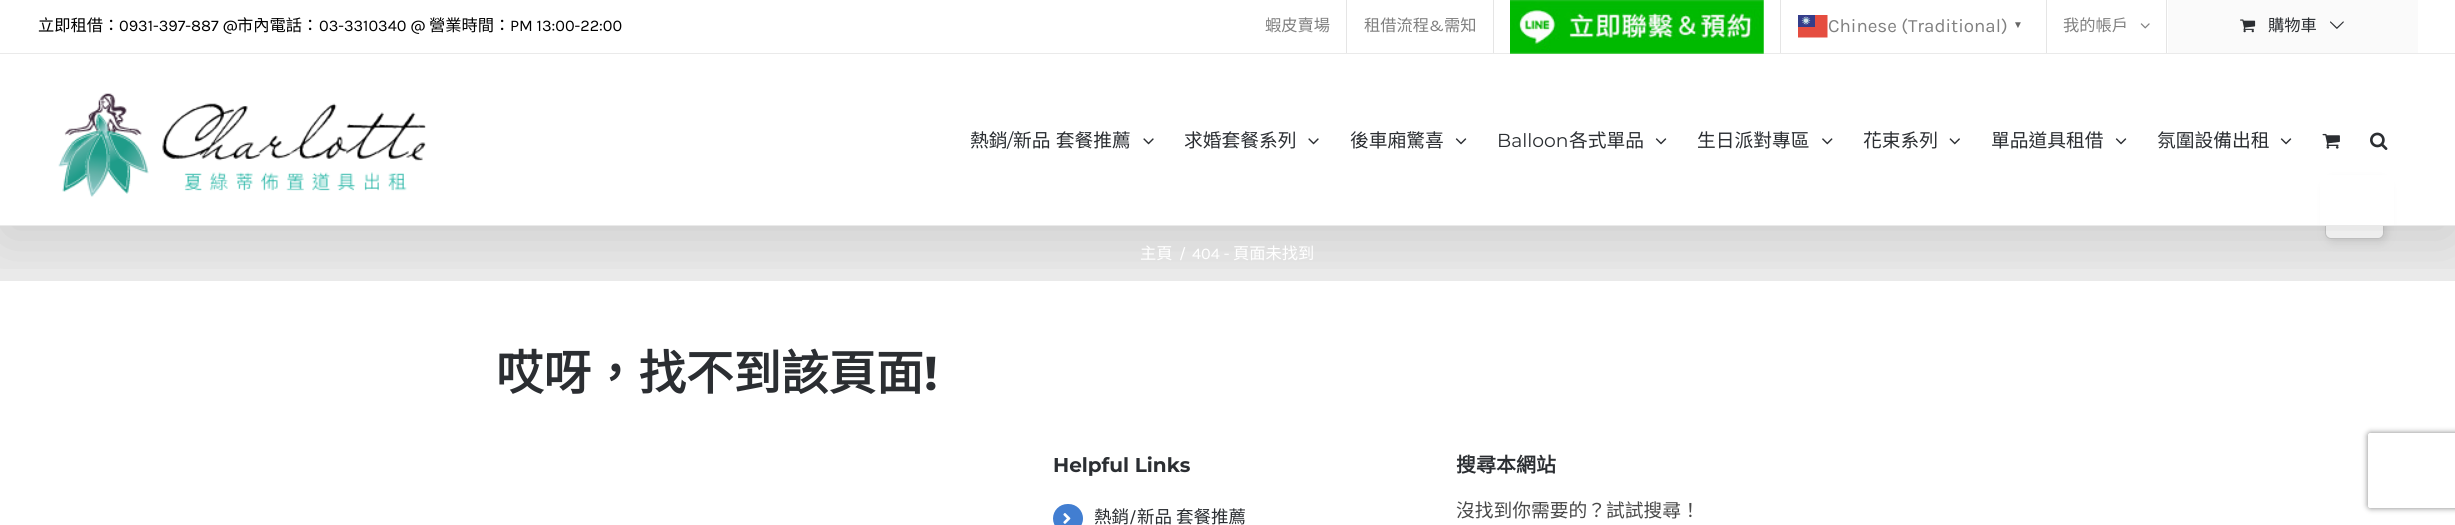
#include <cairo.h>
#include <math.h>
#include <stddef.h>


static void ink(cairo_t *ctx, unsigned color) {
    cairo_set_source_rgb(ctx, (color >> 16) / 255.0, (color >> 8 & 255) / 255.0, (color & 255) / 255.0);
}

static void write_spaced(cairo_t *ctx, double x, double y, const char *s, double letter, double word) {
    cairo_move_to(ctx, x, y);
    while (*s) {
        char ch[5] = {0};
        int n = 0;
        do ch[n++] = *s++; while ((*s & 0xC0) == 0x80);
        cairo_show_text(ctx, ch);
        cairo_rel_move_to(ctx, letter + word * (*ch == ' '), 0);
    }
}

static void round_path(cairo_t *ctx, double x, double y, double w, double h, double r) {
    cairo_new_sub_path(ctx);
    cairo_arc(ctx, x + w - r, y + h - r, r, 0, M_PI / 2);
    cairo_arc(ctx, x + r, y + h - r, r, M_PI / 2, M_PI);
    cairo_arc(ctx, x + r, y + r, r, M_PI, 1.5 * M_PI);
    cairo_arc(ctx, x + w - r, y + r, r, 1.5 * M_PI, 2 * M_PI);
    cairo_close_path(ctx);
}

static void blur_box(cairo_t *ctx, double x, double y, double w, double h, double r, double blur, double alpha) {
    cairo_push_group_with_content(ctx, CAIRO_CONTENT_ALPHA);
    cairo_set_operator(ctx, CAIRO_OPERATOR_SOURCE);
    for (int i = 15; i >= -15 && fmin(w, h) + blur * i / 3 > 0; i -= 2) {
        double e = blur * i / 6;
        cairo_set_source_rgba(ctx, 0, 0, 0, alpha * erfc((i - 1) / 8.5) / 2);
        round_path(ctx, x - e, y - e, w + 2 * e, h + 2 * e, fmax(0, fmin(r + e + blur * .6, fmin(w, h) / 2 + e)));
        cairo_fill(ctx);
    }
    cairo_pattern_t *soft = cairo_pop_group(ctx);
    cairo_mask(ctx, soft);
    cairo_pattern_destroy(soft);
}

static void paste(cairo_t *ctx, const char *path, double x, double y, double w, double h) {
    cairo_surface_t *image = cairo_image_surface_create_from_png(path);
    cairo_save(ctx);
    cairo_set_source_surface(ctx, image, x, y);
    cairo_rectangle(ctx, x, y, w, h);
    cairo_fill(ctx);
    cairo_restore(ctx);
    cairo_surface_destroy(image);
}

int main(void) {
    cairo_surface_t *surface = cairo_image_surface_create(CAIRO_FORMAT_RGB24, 2455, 525);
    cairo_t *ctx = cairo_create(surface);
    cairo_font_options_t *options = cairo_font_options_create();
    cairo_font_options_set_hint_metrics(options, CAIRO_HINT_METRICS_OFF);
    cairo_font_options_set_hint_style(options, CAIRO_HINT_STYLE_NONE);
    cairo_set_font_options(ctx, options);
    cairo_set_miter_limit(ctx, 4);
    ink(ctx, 0xFFFFFF);
    cairo_paint(ctx);
    ink(ctx, 0xEAEAEA);
    cairo_rectangle(ctx, 0, 226, 2455, 55);
    cairo_fill(ctx);
    ink(ctx, 0xCCCCCC);
    blur_box(ctx, 2328, 183, 58, 58, 6, 5, 1);
    ink(ctx, 0xFFFFFF);
    round_path(ctx, 2325.5, 180.5, 58, 58, 5.5);
    cairo_fill_preserve(ctx);
    ink(ctx, 0xCCCCCC);
    cairo_set_line_width(ctx, 1);
    cairo_stroke(ctx);
    cairo_save(ctx);
    cairo_rectangle(ctx, 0, 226, 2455, 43);
    cairo_clip(ctx);
    ink(ctx, 0x000000);
    blur_box(ctx, 3, 15, 2450, 221, 0, 31, 0.14);
    cairo_restore(ctx);
    ink(ctx, 0xEAEAEA);
    cairo_rectangle(ctx, 0, 53, 2455, 1);
    cairo_fill(ctx);
    cairo_select_font_face(ctx, "Noto Sans CJK TC", CAIRO_FONT_SLANT_NORMAL, CAIRO_FONT_WEIGHT_NORMAL);
    cairo_set_font_size(ctx, 16.25);
    ink(ctx, 0x000000);
    cairo_move_to(ctx, 38, 31);
    cairo_show_text(ctx, "立即租借：");
    cairo_select_font_face(ctx, "Karla", CAIRO_FONT_SLANT_NORMAL, CAIRO_FONT_WEIGHT_NORMAL);
    cairo_move_to(ctx, 119, 31);
    cairo_show_text(ctx, "0931-397-887 @");
    cairo_select_font_face(ctx, "Noto Sans CJK TC", CAIRO_FONT_SLANT_NORMAL, CAIRO_FONT_WEIGHT_NORMAL);
    cairo_move_to(ctx, 237, 31);
    cairo_show_text(ctx, "市內電話：");
    cairo_select_font_face(ctx, "Karla", CAIRO_FONT_SLANT_NORMAL, CAIRO_FONT_WEIGHT_NORMAL);
    cairo_move_to(ctx, 319, 31);
    cairo_show_text(ctx, "03-3310340 @");
    cairo_select_font_face(ctx, "Noto Sans CJK TC", CAIRO_FONT_SLANT_NORMAL, CAIRO_FONT_WEIGHT_NORMAL);
    cairo_move_to(ctx, 429, 31);
    cairo_show_text(ctx, "營業時間：");
    cairo_select_font_face(ctx, "Karla", CAIRO_FONT_SLANT_NORMAL, CAIRO_FONT_WEIGHT_NORMAL);
    cairo_move_to(ctx, 510, 31);
    cairo_show_text(ctx, "PM 13:00-22:00");
    cairo_select_font_face(ctx, "Noto Sans CJK TC", CAIRO_FONT_SLANT_NORMAL, CAIRO_FONT_WEIGHT_NORMAL);
    ink(ctx, 0x808080);
    cairo_move_to(ctx, 1265, 31);
    cairo_show_text(ctx, "蝦皮賣場");
    ink(ctx, 0xE5E5E5);
    cairo_rectangle(ctx, 1346, 0, 1, 53);
    cairo_fill(ctx);
    ink(ctx, 0x808080);
    cairo_move_to(ctx, 1364, 31);
    cairo_show_text(ctx, "租借流程");
    cairo_select_font_face(ctx, "Karla", CAIRO_FONT_SLANT_NORMAL, CAIRO_FONT_WEIGHT_NORMAL);
    cairo_move_to(ctx, 1429, 31);
    cairo_show_text(ctx, "&");
    cairo_select_font_face(ctx, "Noto Sans CJK TC", CAIRO_FONT_SLANT_NORMAL, CAIRO_FONT_WEIGHT_NORMAL);
    cairo_move_to(ctx, 1444, 31);
    cairo_show_text(ctx, "需知");
    ink(ctx, 0xE5E5E5);
    cairo_rectangle(ctx, 1493, 0, 1, 53);
    cairo_fill(ctx);
    paste(ctx, "media/1.png", 1510, 0, 254, 54);
    cairo_rectangle(ctx, 1780, 0, 1, 53);
    cairo_fill(ctx);
    paste(ctx, "media/2.png", 1798, 15, 30, 23);
    cairo_select_font_face(ctx, "Karla", CAIRO_FONT_SLANT_NORMAL, CAIRO_FONT_WEIGHT_NORMAL);
    cairo_set_font_size(ctx, 18.75);
    ink(ctx, 0x808080);
    cairo_move_to(ctx, 1828, 32);
    cairo_show_text(ctx, "Chinese (Traditional)");
    cairo_select_font_face(ctx, "Liberation Sans", CAIRO_FONT_SLANT_NORMAL, CAIRO_FONT_WEIGHT_BOLD);
    cairo_set_font_size(ctx, 10);
    ink(ctx, 0x666666);
    cairo_move_to(ctx, 2013, 28);
    cairo_show_text(ctx, "▼");
    ink(ctx, 0xE5E5E5);
    cairo_rectangle(ctx, 2046, 0, 1, 53);
    cairo_fill(ctx);
    cairo_select_font_face(ctx, "Noto Sans CJK TC", CAIRO_FONT_SLANT_NORMAL, CAIRO_FONT_WEIGHT_NORMAL);
    cairo_set_font_size(ctx, 16.25);
    ink(ctx, 0x808080);
    cairo_move_to(ctx, 2063, 31);
    cairo_show_text(ctx, "我的帳戶");
    paste(ctx, "media/3.png", 2140, 23, 10, 6);
    ink(ctx, 0xE5E5E5);
    cairo_rectangle(ctx, 2166, 0, 1, 53);
    cairo_fill(ctx);
    ink(ctx, 0xFAFAFA);
    cairo_rectangle(ctx, 2168, 0, 250, 53);
    cairo_fill(ctx);
    paste(ctx, "media/4.png", 2240, 19, 16, 14);
    ink(ctx, 0x2B2E32);
    cairo_move_to(ctx, 2268, 31);
    cairo_show_text(ctx, "購物車");
    paste(ctx, "media/5.png", 2330, 21, 14, 8);
    ink(ctx, 0xFFFFFF);
    cairo_rectangle(ctx, 2320, 175, 74, 50);
    cairo_fill(ctx);
    ink(ctx, 0xEAEAEA);
    cairo_rectangle(ctx, 0, 225, 2455, 1);
    cairo_fill(ctx);
    paste(ctx, "media/6.png", 58, 93, 368, 104);
    cairo_set_font_size(ctx, 18.75);
    ink(ctx, 0x2B2E32);
    cairo_move_to(ctx, 970, 147);
    cairo_show_text(ctx, "熱銷");
    cairo_select_font_face(ctx, "Montserrat", CAIRO_FONT_SLANT_NORMAL, CAIRO_FONT_WEIGHT_NORMAL);
    cairo_move_to(ctx, 1007, 147);
    cairo_show_text(ctx, "/");
    cairo_select_font_face(ctx, "Noto Sans CJK TC", CAIRO_FONT_SLANT_NORMAL, CAIRO_FONT_WEIGHT_NORMAL);
    write_spaced(ctx, 1013, 147, "新品 套餐推薦", 0, 1);
    paste(ctx, "media/7.png", 1143, 138, 11, 7);
    cairo_move_to(ctx, 1184, 147);
    cairo_show_text(ctx, "求婚套餐系列");
    paste(ctx, "media/7.png", 1308, 138, 11, 7);
    cairo_move_to(ctx, 1350, 147);
    cairo_show_text(ctx, "後車廂驚喜");
    paste(ctx, "media/8.png", 1455, 138, 12, 7);
    cairo_select_font_face(ctx, "Montserrat", CAIRO_FONT_SLANT_NORMAL, CAIRO_FONT_WEIGHT_NORMAL);
    cairo_move_to(ctx, 1497, 147);
    cairo_show_text(ctx, "Balloon");
    cairo_select_font_face(ctx, "Noto Sans CJK TC", CAIRO_FONT_SLANT_NORMAL, CAIRO_FONT_WEIGHT_NORMAL);
    cairo_move_to(ctx, 1569, 147);
    cairo_show_text(ctx, "各式單品");
    paste(ctx, "media/8.png", 1655, 138, 12, 7);
    cairo_move_to(ctx, 1697, 147);
    cairo_show_text(ctx, "生日派對專區");
    paste(ctx, "media/9.png", 1822, 138, 11, 7);
    cairo_move_to(ctx, 1863, 147);
    cairo_show_text(ctx, "花束系列");
    paste(ctx, "media/10.png", 1949, 138, 11, 7);
    cairo_move_to(ctx, 1991, 147);
    cairo_show_text(ctx, "單品道具租借");
    paste(ctx, "media/8.png", 2115, 138, 12, 7);
    cairo_move_to(ctx, 2157, 147);
    cairo_show_text(ctx, "氛圍設備出租");
    paste(ctx, "media/8.png", 2280, 138, 12, 7);
    paste(ctx, "media/11.png", 2322, 133, 18, 16);
    paste(ctx, "media/12.png", 2370, 132, 18, 18);
    cairo_set_font_size(ctx, 16.25);
    ink(ctx, 0xFFFFFF);
    cairo_move_to(ctx, 1140, 259);
    cairo_show_text(ctx, "主頁");
    cairo_select_font_face(ctx, "Karla", CAIRO_FONT_SLANT_NORMAL, CAIRO_FONT_WEIGHT_NORMAL);
    cairo_move_to(ctx, 1179, 259);
    cairo_show_text(ctx, "/");
    cairo_move_to(ctx, 1192, 259);
    cairo_show_text(ctx, "404 -");
    cairo_select_font_face(ctx, "Noto Sans CJK TC", CAIRO_FONT_SLANT_NORMAL, CAIRO_FONT_WEIGHT_NORMAL);
    cairo_move_to(ctx, 1233, 259);
    cairo_show_text(ctx, "頁面未找到");
    cairo_select_font_face(ctx, "Noto Sans CJK TC", CAIRO_FONT_SLANT_NORMAL, CAIRO_FONT_WEIGHT_BOLD);
    cairo_set_font_size(ctx, 47.5);
    ink(ctx, 0x2B2E32);
    cairo_move_to(ctx, 496, 390);
    cairo_show_text(ctx, "哎呀，找不到該頁面");
    cairo_select_font_face(ctx, "Montserrat", CAIRO_FONT_SLANT_NORMAL, CAIRO_FONT_WEIGHT_BOLD);
    cairo_move_to(ctx, 924, 390);
    cairo_show_text(ctx, "!");
    cairo_set_font_size(ctx, 20);
    cairo_move_to(ctx, 1053, 472);
    cairo_show_text(ctx, "Helpful Links");
    ink(ctx, 0x427ED1);
    round_path(ctx, 1053, 504, 30, 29, 14.5);
    cairo_fill(ctx);
    paste(ctx, "media/13.png", 1063, 513, 8, 11);
    cairo_select_font_face(ctx, "Noto Sans CJK TC", CAIRO_FONT_SLANT_NORMAL, CAIRO_FONT_WEIGHT_NORMAL);
    cairo_set_font_size(ctx, 17.5);
    ink(ctx, 0x2B2E32);
    cairo_move_to(ctx, 1094, 523);
    cairo_show_text(ctx, "熱銷");
    cairo_select_font_face(ctx, "Karla", CAIRO_FONT_SLANT_NORMAL, CAIRO_FONT_WEIGHT_NORMAL);
    cairo_move_to(ctx, 1129, 523);
    cairo_show_text(ctx, "/");
    cairo_select_font_face(ctx, "Noto Sans CJK TC", CAIRO_FONT_SLANT_NORMAL, CAIRO_FONT_WEIGHT_NORMAL);
    cairo_move_to(ctx, 1137, 523);
    cairo_show_text(ctx, "新品 套餐推薦");
    cairo_select_font_face(ctx, "Noto Sans CJK TC", CAIRO_FONT_SLANT_NORMAL, CAIRO_FONT_WEIGHT_BOLD);
    cairo_set_font_size(ctx, 20);
    cairo_move_to(ctx, 1456, 472);
    cairo_show_text(ctx, "搜尋本網站");
    cairo_select_font_face(ctx, "Noto Sans CJK TC", CAIRO_FONT_SLANT_NORMAL, CAIRO_FONT_WEIGHT_NORMAL);
    cairo_set_font_size(ctx, 18.75);
    ink(ctx, 0x494949);
    cairo_move_to(ctx, 1456, 517);
    cairo_show_text(ctx, "沒找到你需要的？試試搜尋！");
    cairo_save(ctx);
    cairo_set_fill_rule(ctx, CAIRO_FILL_RULE_EVEN_ODD);
    cairo_new_path(ctx);
    cairo_move_to(ctx, 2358, 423);
    cairo_line_to(ctx, 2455, 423);
    cairo_line_to(ctx, 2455, 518);
    cairo_line_to(ctx, 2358, 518);
    cairo_close_path(ctx);
    cairo_move_to(ctx, 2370.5, 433);
    cairo_line_to(ctx, 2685.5, 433);
    cairo_curve_to(ctx, 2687, 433, 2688, 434, 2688, 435.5);
    cairo_line_to(ctx, 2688, 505.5);
    cairo_curve_to(ctx, 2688, 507, 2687, 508, 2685.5, 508);
    cairo_line_to(ctx, 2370.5, 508);
    cairo_curve_to(ctx, 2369, 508, 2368, 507, 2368, 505.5);
    cairo_line_to(ctx, 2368, 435.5);
    cairo_curve_to(ctx, 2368, 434, 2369, 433, 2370.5, 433);
    cairo_close_path(ctx);
    cairo_clip(ctx);
    ink(ctx, 0x808080);
    blur_box(ctx, 2368, 433, 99, 75, 2.5, 3, 1);
    cairo_restore(ctx);
    cairo_surface_write_to_png(surface, "image.png");
    cairo_font_options_destroy(options);
    cairo_destroy(ctx);
    cairo_surface_destroy(surface);
    return 0;
}
